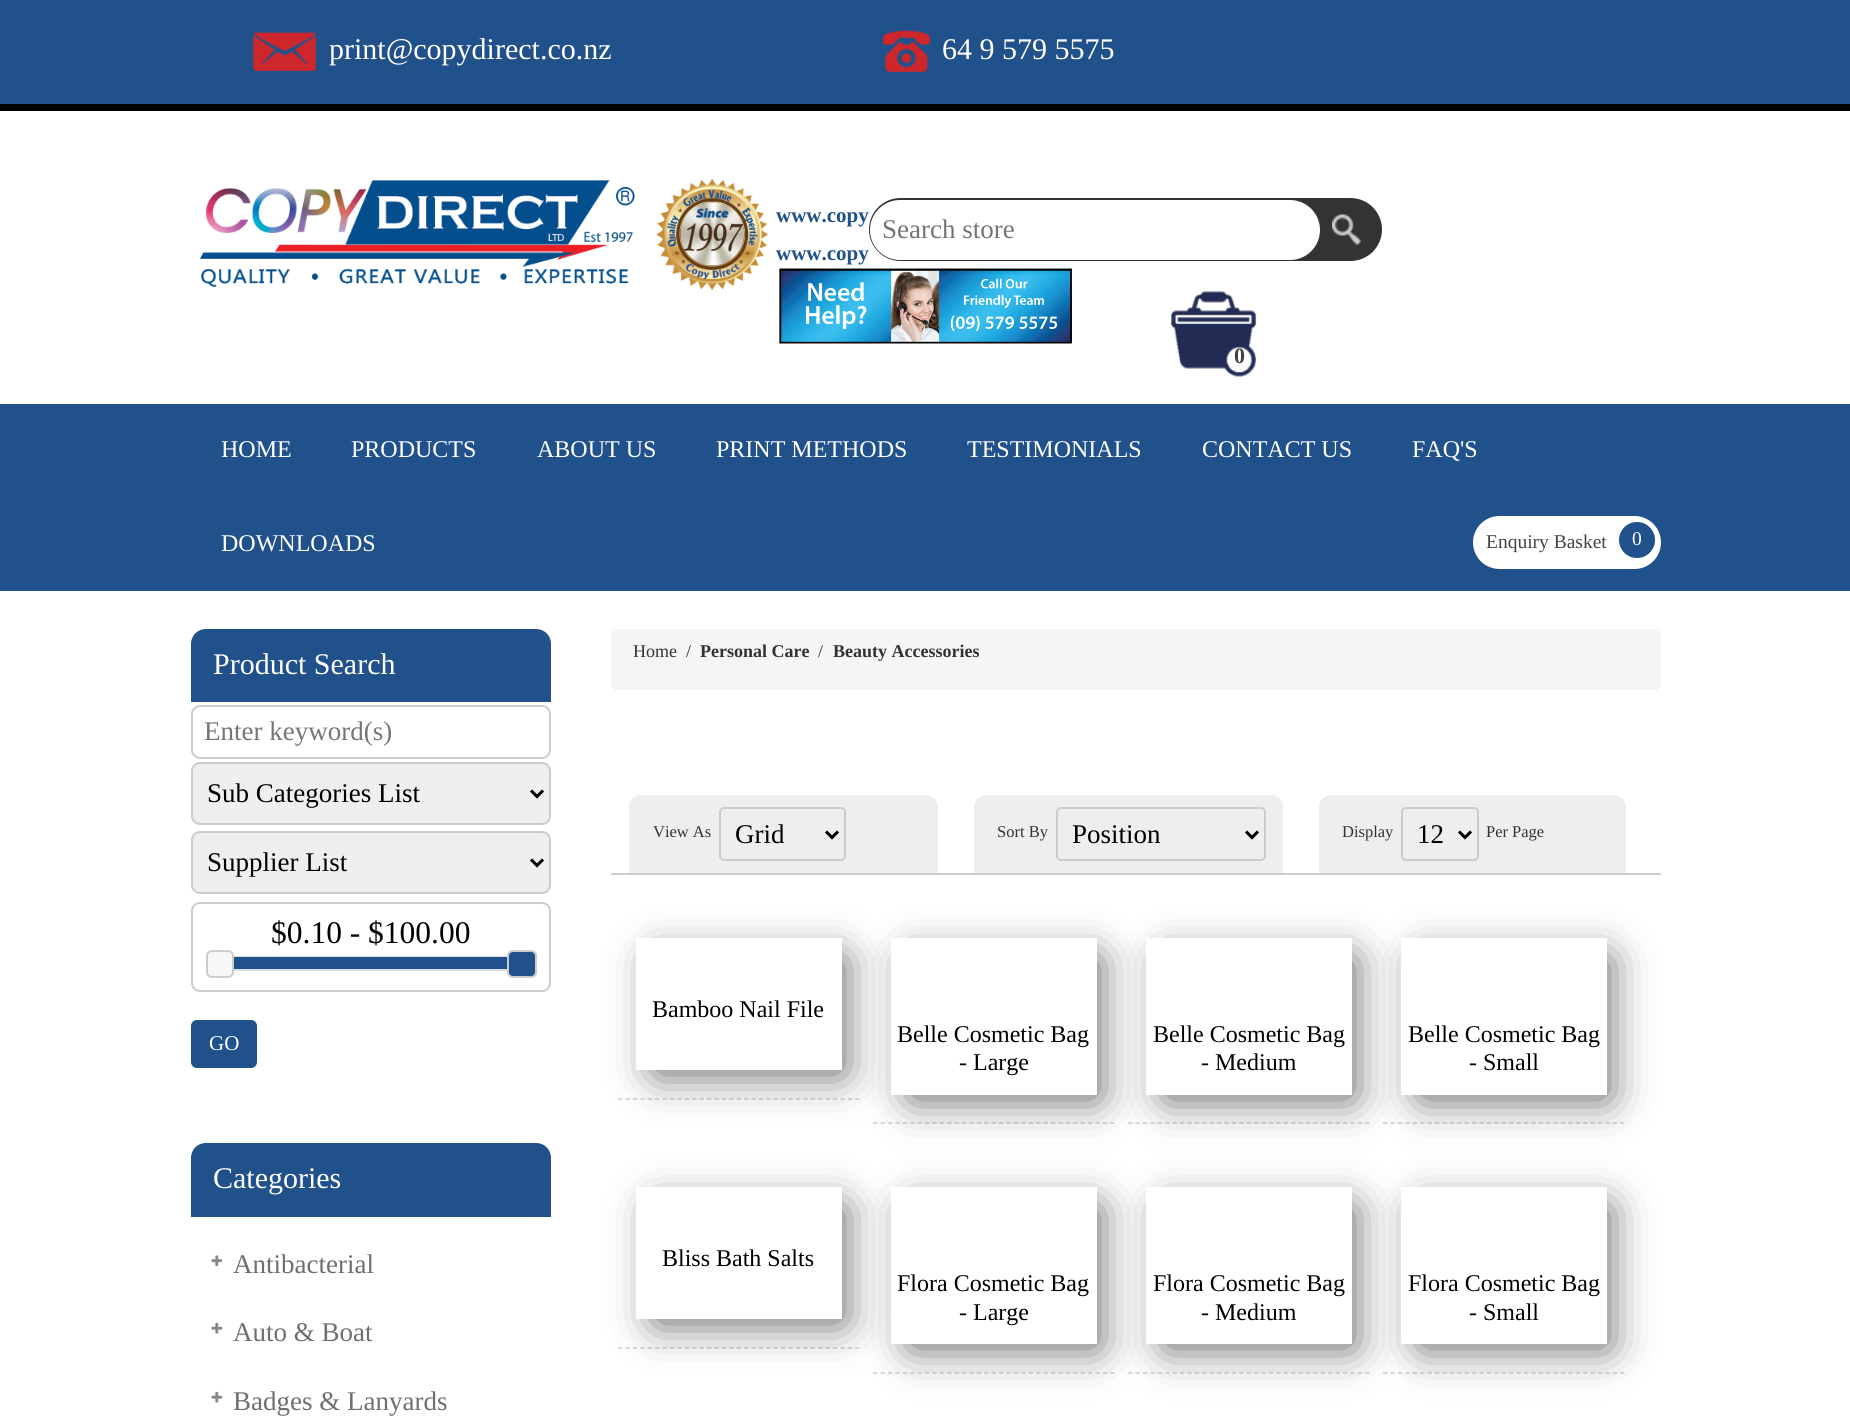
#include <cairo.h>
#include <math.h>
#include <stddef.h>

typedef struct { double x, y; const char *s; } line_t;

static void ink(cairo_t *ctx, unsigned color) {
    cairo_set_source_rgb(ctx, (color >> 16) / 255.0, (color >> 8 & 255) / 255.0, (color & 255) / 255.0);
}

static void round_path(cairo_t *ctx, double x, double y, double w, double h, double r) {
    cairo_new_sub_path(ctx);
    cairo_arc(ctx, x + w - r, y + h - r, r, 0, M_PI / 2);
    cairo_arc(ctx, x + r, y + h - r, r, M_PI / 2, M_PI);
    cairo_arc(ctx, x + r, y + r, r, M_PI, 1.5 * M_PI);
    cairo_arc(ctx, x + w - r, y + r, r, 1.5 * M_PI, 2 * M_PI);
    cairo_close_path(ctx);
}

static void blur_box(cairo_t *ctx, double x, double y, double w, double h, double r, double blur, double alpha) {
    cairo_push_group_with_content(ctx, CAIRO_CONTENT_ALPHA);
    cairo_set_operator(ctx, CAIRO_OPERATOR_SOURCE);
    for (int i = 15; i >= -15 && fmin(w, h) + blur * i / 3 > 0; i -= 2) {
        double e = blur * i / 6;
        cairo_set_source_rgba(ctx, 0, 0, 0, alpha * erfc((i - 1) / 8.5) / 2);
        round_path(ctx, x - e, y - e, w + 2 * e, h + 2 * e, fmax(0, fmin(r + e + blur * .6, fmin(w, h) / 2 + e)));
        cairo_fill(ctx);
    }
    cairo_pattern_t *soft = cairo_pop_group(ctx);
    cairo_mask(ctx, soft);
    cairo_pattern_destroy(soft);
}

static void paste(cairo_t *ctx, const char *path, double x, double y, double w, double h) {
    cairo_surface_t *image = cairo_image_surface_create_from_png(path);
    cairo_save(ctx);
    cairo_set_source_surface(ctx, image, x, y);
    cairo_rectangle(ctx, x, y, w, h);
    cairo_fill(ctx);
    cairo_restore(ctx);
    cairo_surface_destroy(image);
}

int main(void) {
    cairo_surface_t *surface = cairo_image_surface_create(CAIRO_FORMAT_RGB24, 1850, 1420);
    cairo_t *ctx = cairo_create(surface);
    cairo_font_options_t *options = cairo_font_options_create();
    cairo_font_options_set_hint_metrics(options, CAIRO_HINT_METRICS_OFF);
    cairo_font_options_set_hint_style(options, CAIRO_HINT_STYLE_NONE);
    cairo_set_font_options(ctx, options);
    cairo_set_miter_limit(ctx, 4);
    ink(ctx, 0xFFFFFF);
    cairo_paint(ctx);
    ink(ctx, 0x20518B);
    cairo_rectangle(ctx, 0, 0, 1850, 104);
    cairo_fill(ctx);
    ink(ctx, 0x000000);
    cairo_rectangle(ctx, 0, 104, 1850, 7);
    cairo_fill(ctx);
    paste(ctx, "media/1.png", 253, 32, 63, 39);
    cairo_select_font_face(ctx, "Liberation Serif", CAIRO_FONT_SLANT_NORMAL, CAIRO_FONT_WEIGHT_NORMAL);
    cairo_set_font_size(ctx, 30);
    ink(ctx, 0xFFFFFF);
    cairo_move_to(ctx, 329, 59);
    cairo_show_text(ctx, "print@copydirect.co.nz");
    paste(ctx, "media/2.png", 883, 30, 47, 42);
    cairo_move_to(ctx, 942, 59);
    cairo_show_text(ctx, "64 9 579 5575");
    paste(ctx, "media/3.png", 199, 179, 570, 112);
    cairo_select_font_face(ctx, "Liberation Serif", CAIRO_FONT_SLANT_NORMAL, CAIRO_FONT_WEIGHT_BOLD);
    cairo_set_font_size(ctx, 21);
    ink(ctx, 0x20518B);
    cairo_move_to(ctx, 776, 222);
    cairo_show_text(ctx, "www.copy");
    cairo_move_to(ctx, 776, 260);
    cairo_show_text(ctx, "www.copy");
    ink(ctx, 0x333333);
    round_path(ctx, 869, 198, 513, 63, 31.5);
    cairo_fill(ctx);
    ink(ctx, 0xFFFFFF);
    round_path(ctx, 870, 200, 450, 60, 30);
    cairo_fill(ctx);
    cairo_select_font_face(ctx, "Liberation Serif", CAIRO_FONT_SLANT_NORMAL, CAIRO_FONT_WEIGHT_NORMAL);
    cairo_set_font_size(ctx, 27);
    ink(ctx, 0x757575);
    cairo_move_to(ctx, 882, 238);
    cairo_show_text(ctx, "Search store");
    paste(ctx, "media/4.png", 1332, 214, 29, 31);
    paste(ctx, "media/5.png", 779, 268, 293, 76);
    paste(ctx, "media/6.png", 1171, 291, 86, 86);
    cairo_select_font_face(ctx, "Liberation Serif", CAIRO_FONT_SLANT_NORMAL, CAIRO_FONT_WEIGHT_BOLD);
    cairo_set_font_size(ctx, 22);
    ink(ctx, 0x3F4444);
    cairo_move_to(ctx, 1234, 363);
    cairo_show_text(ctx, "0");
    ink(ctx, 0x20518B);
    cairo_rectangle(ctx, 0, 404, 1850, 187);
    cairo_fill(ctx);
    cairo_select_font_face(ctx, "Liberation Serif", CAIRO_FONT_SLANT_NORMAL, CAIRO_FONT_WEIGHT_NORMAL);
    cairo_set_font_size(ctx, 24);
    ink(ctx, 0xFFFFFF);
    {
        static const line_t items[] = {
            {221, 457, "HOME"},
            {351, 457, "PRODUCTS"},
            {537, 457, "ABOUT US"},
            {716, 457, "PRINT METHODS"},
            {967, 457, "TESTIMONIALS"},
            {1202, 457, "CONTACT US"},
            {1412, 457, "FAQ'S"},
            {221, 551, "DOWNLOADS"},
        };
        for (size_t i = 0; i < sizeof items / sizeof *items; i++) {
            cairo_move_to(ctx, items[i].x, items[i].y);
            cairo_show_text(ctx, items[i].s);
        }
    }
    round_path(ctx, 1473, 516, 188, 53, 26.5);
    cairo_fill(ctx);
    cairo_set_font_size(ctx, 19.5);
    ink(ctx, 0x3F4444);
    cairo_move_to(ctx, 1486, 548);
    cairo_show_text(ctx, "Enquiry Basket");
    ink(ctx, 0x20518B);
    cairo_new_path(ctx);
    cairo_arc(ctx, 1637, 540, 18, 0, 2 * M_PI);
    cairo_fill(ctx);
    ink(ctx, 0xFFFFFF);
    cairo_move_to(ctx, 1632, 545);
    cairo_show_text(ctx, "0");
    ink(ctx, 0x20518B);
    cairo_new_path(ctx);
    cairo_move_to(ctx, 206, 629);
    cairo_line_to(ctx, 536, 629);
    cairo_curve_to(ctx, 544.5, 629, 551, 635.5, 551, 644);
    cairo_line_to(ctx, 551, 702);
    cairo_line_to(ctx, 191, 702);
    cairo_line_to(ctx, 191, 644);
    cairo_curve_to(ctx, 191, 635.5, 197.5, 629, 206, 629);
    cairo_close_path(ctx);
    cairo_fill(ctx);
    cairo_set_font_size(ctx, 30);
    ink(ctx, 0xFFFFFF);
    cairo_move_to(ctx, 213, 674);
    cairo_show_text(ctx, "Product Search");
    round_path(ctx, 192, 706, 358, 52, 8);
    ink(ctx, 0xCCCCCC);
    cairo_stroke(ctx);
    cairo_set_font_size(ctx, 27);
    ink(ctx, 0x757575);
    cairo_move_to(ctx, 204, 740);
    cairo_show_text(ctx, "Enter keyword(s)");
    ink(ctx, 0xEFEFEF);
    round_path(ctx, 192, 763, 358, 61, 8);
    cairo_fill_preserve(ctx);
    ink(ctx, 0xCCCCCC);
    cairo_stroke(ctx);
    cairo_new_path(ctx);
    cairo_move_to(ctx, 531, 790.5);
    cairo_line_to(ctx, 537, 796.5);
    cairo_line_to(ctx, 543, 790.5);
    ink(ctx, 0x000000);
    cairo_set_line_width(ctx, 3);
    cairo_stroke(ctx);
    cairo_move_to(ctx, 207, 802);
    cairo_show_text(ctx, "Sub Categories List");
    ink(ctx, 0xEFEFEF);
    round_path(ctx, 192, 832, 358, 61, 8);
    cairo_fill_preserve(ctx);
    ink(ctx, 0xCCCCCC);
    cairo_set_line_width(ctx, 2);
    cairo_stroke(ctx);
    cairo_new_path(ctx);
    cairo_move_to(ctx, 531, 859.5);
    cairo_line_to(ctx, 537, 865.5);
    cairo_line_to(ctx, 543, 859.5);
    ink(ctx, 0x000000);
    cairo_set_line_width(ctx, 3);
    cairo_stroke(ctx);
    cairo_move_to(ctx, 207, 871);
    cairo_show_text(ctx, "Supplier List");
    round_path(ctx, 192, 903, 358, 88, 8);
    ink(ctx, 0xCCCCCC);
    cairo_set_line_width(ctx, 2);
    cairo_stroke(ctx);
    cairo_set_font_size(ctx, 31.5);
    ink(ctx, 0x000000);
    cairo_move_to(ctx, 271, 943);
    cairo_show_text(ctx, "$0.10 - $100.00");
    cairo_rectangle(ctx, 219, 957, 304, 13);
    ink(ctx, 0xDDDDDD);
    cairo_stroke(ctx);
    ink(ctx, 0xF6F6F6);
    round_path(ctx, 207, 951, 26, 26, 5);
    cairo_fill_preserve(ctx);
    ink(ctx, 0xCCCCCC);
    cairo_stroke(ctx);
    ink(ctx, 0x20518B);
    cairo_rectangle(ctx, 234, 957, 273, 12);
    cairo_fill(ctx);
    round_path(ctx, 508, 951, 28, 26, 5);
    cairo_fill_preserve(ctx);
    ink(ctx, 0xCCCCCC);
    cairo_stroke(ctx);
    ink(ctx, 0x20518B);
    round_path(ctx, 191, 1020, 66, 48, 6);
    cairo_fill(ctx);
    cairo_set_font_size(ctx, 21);
    ink(ctx, 0xFFFFFF);
    cairo_move_to(ctx, 209, 1050);
    cairo_show_text(ctx, "GO");
    ink(ctx, 0x20518B);
    cairo_new_path(ctx);
    cairo_move_to(ctx, 206, 1143);
    cairo_line_to(ctx, 536, 1143);
    cairo_curve_to(ctx, 544.5, 1143, 551, 1149.5, 551, 1158);
    cairo_line_to(ctx, 551, 1217);
    cairo_line_to(ctx, 191, 1217);
    cairo_line_to(ctx, 191, 1158);
    cairo_curve_to(ctx, 191, 1149.5, 197.5, 1143, 206, 1143);
    cairo_close_path(ctx);
    cairo_fill(ctx);
    cairo_set_font_size(ctx, 30);
    ink(ctx, 0xFFFFFF);
    cairo_move_to(ctx, 213, 1188);
    cairo_show_text(ctx, "Categories");
    paste(ctx, "media/7.png", 211, 1255, 12, 11);
    cairo_set_font_size(ctx, 27);
    ink(ctx, 0x716E6E);
    cairo_move_to(ctx, 233, 1273);
    cairo_show_text(ctx, "Antibacterial");
    paste(ctx, "media/8.png", 211, 1322, 12, 12);
    cairo_move_to(ctx, 233, 1341);
    cairo_show_text(ctx, "Auto & Boat");
    paste(ctx, "media/8.png", 211, 1391, 12, 12);
    cairo_move_to(ctx, 233, 1410);
    cairo_show_text(ctx, "Badges & Lanyards");
    ink(ctx, 0xF5F5F5);
    round_path(ctx, 611, 629, 1050, 61, 6);
    cairo_fill(ctx);
    cairo_set_font_size(ctx, 18);
    ink(ctx, 0x333333);
    cairo_move_to(ctx, 633, 657);
    cairo_show_text(ctx, "Home");
    cairo_move_to(ctx, 686, 657);
    cairo_show_text(ctx, "/");
    cairo_select_font_face(ctx, "Liberation Serif", CAIRO_FONT_SLANT_NORMAL, CAIRO_FONT_WEIGHT_BOLD);
    cairo_move_to(ctx, 700, 657);
    cairo_show_text(ctx, "Personal Care");
    cairo_select_font_face(ctx, "Liberation Serif", CAIRO_FONT_SLANT_NORMAL, CAIRO_FONT_WEIGHT_NORMAL);
    cairo_move_to(ctx, 818, 657);
    cairo_show_text(ctx, "/");
    cairo_select_font_face(ctx, "Liberation Serif", CAIRO_FONT_SLANT_NORMAL, CAIRO_FONT_WEIGHT_BOLD);
    cairo_move_to(ctx, 833, 657);
    cairo_show_text(ctx, "Beauty Accessories");
    ink(ctx, 0xCCCCCC);
    cairo_rectangle(ctx, 611, 873, 1050, 2);
    cairo_fill(ctx);
    ink(ctx, 0xEEEEEE);
    cairo_new_path(ctx);
    cairo_move_to(ctx, 641, 795);
    cairo_line_to(ctx, 926, 795);
    cairo_curve_to(ctx, 932.5, 795, 938, 800.5, 938, 807);
    cairo_line_to(ctx, 938, 873);
    cairo_line_to(ctx, 629, 873);
    cairo_line_to(ctx, 629, 807);
    cairo_curve_to(ctx, 629, 800.5, 634.5, 795, 641, 795);
    cairo_close_path(ctx);
    cairo_fill(ctx);
    cairo_select_font_face(ctx, "Liberation Serif", CAIRO_FONT_SLANT_NORMAL, CAIRO_FONT_WEIGHT_NORMAL);
    cairo_set_font_size(ctx, 16.5);
    ink(ctx, 0x333333);
    cairo_move_to(ctx, 653, 837);
    cairo_show_text(ctx, "View As");
    round_path(ctx, 720, 808, 125, 52, 4);
    ink(ctx, 0xCCCCCC);
    cairo_stroke(ctx);
    cairo_new_path(ctx);
    cairo_move_to(ctx, 826, 831.5);
    cairo_line_to(ctx, 832, 837.5);
    cairo_line_to(ctx, 838, 831.5);
    ink(ctx, 0x000000);
    cairo_set_line_width(ctx, 3);
    cairo_stroke(ctx);
    cairo_set_font_size(ctx, 27);
    cairo_move_to(ctx, 735, 843);
    cairo_show_text(ctx, "Grid");
    ink(ctx, 0xEEEEEE);
    cairo_new_path(ctx);
    cairo_move_to(ctx, 986, 795);
    cairo_line_to(ctx, 1271, 795);
    cairo_curve_to(ctx, 1277.5, 795, 1283, 800.5, 1283, 807);
    cairo_line_to(ctx, 1283, 873);
    cairo_line_to(ctx, 974, 873);
    cairo_line_to(ctx, 974, 807);
    cairo_curve_to(ctx, 974, 800.5, 979.5, 795, 986, 795);
    cairo_close_path(ctx);
    cairo_fill(ctx);
    cairo_set_font_size(ctx, 16.5);
    ink(ctx, 0x333333);
    cairo_move_to(ctx, 997, 837);
    cairo_show_text(ctx, "Sort By");
    round_path(ctx, 1057, 808, 208, 52, 4);
    ink(ctx, 0xCCCCCC);
    cairo_set_line_width(ctx, 2);
    cairo_stroke(ctx);
    cairo_new_path(ctx);
    cairo_move_to(ctx, 1246, 831.5);
    cairo_line_to(ctx, 1252, 837.5);
    cairo_line_to(ctx, 1258, 831.5);
    ink(ctx, 0x000000);
    cairo_set_line_width(ctx, 3);
    cairo_stroke(ctx);
    cairo_set_font_size(ctx, 27);
    cairo_move_to(ctx, 1072, 843);
    cairo_show_text(ctx, "Position");
    ink(ctx, 0xEEEEEE);
    cairo_new_path(ctx);
    cairo_move_to(ctx, 1331, 795);
    cairo_line_to(ctx, 1614, 795);
    cairo_curve_to(ctx, 1620.5, 795, 1626, 800.5, 1626, 807);
    cairo_line_to(ctx, 1626, 873);
    cairo_line_to(ctx, 1319, 873);
    cairo_line_to(ctx, 1319, 807);
    cairo_curve_to(ctx, 1319, 800.5, 1324.5, 795, 1331, 795);
    cairo_close_path(ctx);
    cairo_fill(ctx);
    cairo_set_font_size(ctx, 16.5);
    ink(ctx, 0x333333);
    cairo_move_to(ctx, 1342, 837);
    cairo_show_text(ctx, "Display");
    round_path(ctx, 1402, 808, 76, 52, 4);
    ink(ctx, 0xCCCCCC);
    cairo_set_line_width(ctx, 2);
    cairo_stroke(ctx);
    cairo_new_path(ctx);
    cairo_move_to(ctx, 1459, 831.5);
    cairo_line_to(ctx, 1465, 837.5);
    cairo_line_to(ctx, 1471, 831.5);
    ink(ctx, 0x000000);
    cairo_set_line_width(ctx, 3);
    cairo_stroke(ctx);
    cairo_set_font_size(ctx, 27);
    cairo_move_to(ctx, 1417, 843);
    cairo_show_text(ctx, "12");
    cairo_set_font_size(ctx, 16.5);
    ink(ctx, 0x333333);
    cairo_move_to(ctx, 1486, 837);
    cairo_show_text(ctx, "Per Page");
    cairo_new_path(ctx);
    cairo_move_to(ctx, 618, 1099);
    cairo_line_to(ctx, 859.5, 1099);
    ink(ctx, 0xCCCCCC);
    cairo_set_line_width(ctx, 1.5);
    cairo_set_dash(ctx, (double[]){4.5, 2.91}, 2, 0);
    cairo_stroke(ctx);
    ink(ctx, 0x5F5B5B);
    blur_box(ctx, 656, 959, 187, 114, 0, 22, 1);
    ink(ctx, 0xFFFFFF);
    cairo_rectangle(ctx, 636, 938, 206, 132);
    cairo_fill(ctx);
    cairo_set_font_size(ctx, 24);
    ink(ctx, 0x000000);
    cairo_move_to(ctx, 652, 1017);
    cairo_show_text(ctx, "Bamboo Nail File");
    cairo_new_path(ctx);
    cairo_move_to(ctx, 873, 1123);
    cairo_line_to(ctx, 1114.5, 1123);
    ink(ctx, 0xCCCCCC);
    cairo_stroke(ctx);
    ink(ctx, 0x5F5B5B);
    blur_box(ctx, 911, 959, 187, 139, 0, 22, 1);
    ink(ctx, 0xFFFFFF);
    cairo_rectangle(ctx, 891, 938, 206, 157);
    cairo_fill(ctx);
    ink(ctx, 0x000000);
    cairo_move_to(ctx, 897, 1042);
    cairo_show_text(ctx, "Belle Cosmetic Bag");
    cairo_move_to(ctx, 959, 1070);
    cairo_show_text(ctx, "- Large");
    cairo_new_path(ctx);
    cairo_move_to(ctx, 1128, 1123);
    cairo_line_to(ctx, 1369.5, 1123);
    ink(ctx, 0xCCCCCC);
    cairo_stroke(ctx);
    ink(ctx, 0x5F5B5B);
    blur_box(ctx, 1166, 959, 187, 139, 0, 22, 1);
    ink(ctx, 0xFFFFFF);
    cairo_rectangle(ctx, 1146, 938, 206, 157);
    cairo_fill(ctx);
    ink(ctx, 0x000000);
    cairo_move_to(ctx, 1153, 1042);
    cairo_show_text(ctx, "Belle Cosmetic Bag");
    cairo_move_to(ctx, 1201, 1070);
    cairo_show_text(ctx, "- Medium");
    cairo_new_path(ctx);
    cairo_move_to(ctx, 1383, 1123);
    cairo_line_to(ctx, 1624.5, 1123);
    ink(ctx, 0xCCCCCC);
    cairo_stroke(ctx);
    ink(ctx, 0x5F5B5B);
    blur_box(ctx, 1421, 959, 187, 139, 0, 22, 1);
    ink(ctx, 0xFFFFFF);
    cairo_rectangle(ctx, 1401, 938, 206, 157);
    cairo_fill(ctx);
    ink(ctx, 0x000000);
    cairo_move_to(ctx, 1408, 1042);
    cairo_show_text(ctx, "Belle Cosmetic Bag");
    cairo_move_to(ctx, 1469, 1070);
    cairo_show_text(ctx, "- Small");
    cairo_new_path(ctx);
    cairo_move_to(ctx, 618, 1348);
    cairo_line_to(ctx, 859.5, 1348);
    ink(ctx, 0xCCCCCC);
    cairo_stroke(ctx);
    ink(ctx, 0x5F5B5B);
    blur_box(ctx, 656, 1208, 187, 114, 0, 22, 1);
    ink(ctx, 0xFFFFFF);
    cairo_rectangle(ctx, 636, 1187, 206, 132);
    cairo_fill(ctx);
    ink(ctx, 0x000000);
    cairo_move_to(ctx, 662, 1266);
    cairo_show_text(ctx, "Bliss Bath Salts");
    cairo_new_path(ctx);
    cairo_move_to(ctx, 873, 1373);
    cairo_line_to(ctx, 1114.5, 1373);
    ink(ctx, 0xCCCCCC);
    cairo_stroke(ctx);
    ink(ctx, 0x5F5B5B);
    blur_box(ctx, 911, 1208, 187, 139, 0, 22, 1);
    ink(ctx, 0xFFFFFF);
    cairo_rectangle(ctx, 891, 1187, 206, 157);
    cairo_fill(ctx);
    ink(ctx, 0x000000);
    cairo_move_to(ctx, 897, 1291);
    cairo_show_text(ctx, "Flora Cosmetic Bag");
    cairo_move_to(ctx, 959, 1320);
    cairo_show_text(ctx, "- Large");
    cairo_new_path(ctx);
    cairo_move_to(ctx, 1128, 1373);
    cairo_line_to(ctx, 1369.5, 1373);
    ink(ctx, 0xCCCCCC);
    cairo_stroke(ctx);
    ink(ctx, 0x5F5B5B);
    blur_box(ctx, 1166, 1208, 187, 139, 0, 22, 1);
    ink(ctx, 0xFFFFFF);
    cairo_rectangle(ctx, 1146, 1187, 206, 157);
    cairo_fill(ctx);
    ink(ctx, 0x000000);
    cairo_move_to(ctx, 1153, 1291);
    cairo_show_text(ctx, "Flora Cosmetic Bag");
    cairo_move_to(ctx, 1201, 1320);
    cairo_show_text(ctx, "- Medium");
    cairo_new_path(ctx);
    cairo_move_to(ctx, 1383, 1373);
    cairo_line_to(ctx, 1624.5, 1373);
    ink(ctx, 0xCCCCCC);
    cairo_stroke(ctx);
    ink(ctx, 0x5F5B5B);
    blur_box(ctx, 1421, 1208, 187, 139, 0, 22, 1);
    ink(ctx, 0xFFFFFF);
    cairo_rectangle(ctx, 1401, 1187, 206, 157);
    cairo_fill(ctx);
    ink(ctx, 0x000000);
    cairo_move_to(ctx, 1408, 1291);
    cairo_show_text(ctx, "Flora Cosmetic Bag");
    cairo_move_to(ctx, 1469, 1320);
    cairo_show_text(ctx, "- Small");
    cairo_surface_write_to_png(surface, "image.png");
    cairo_font_options_destroy(options);
    cairo_destroy(ctx);
    cairo_surface_destroy(surface);
    return 0;
}
